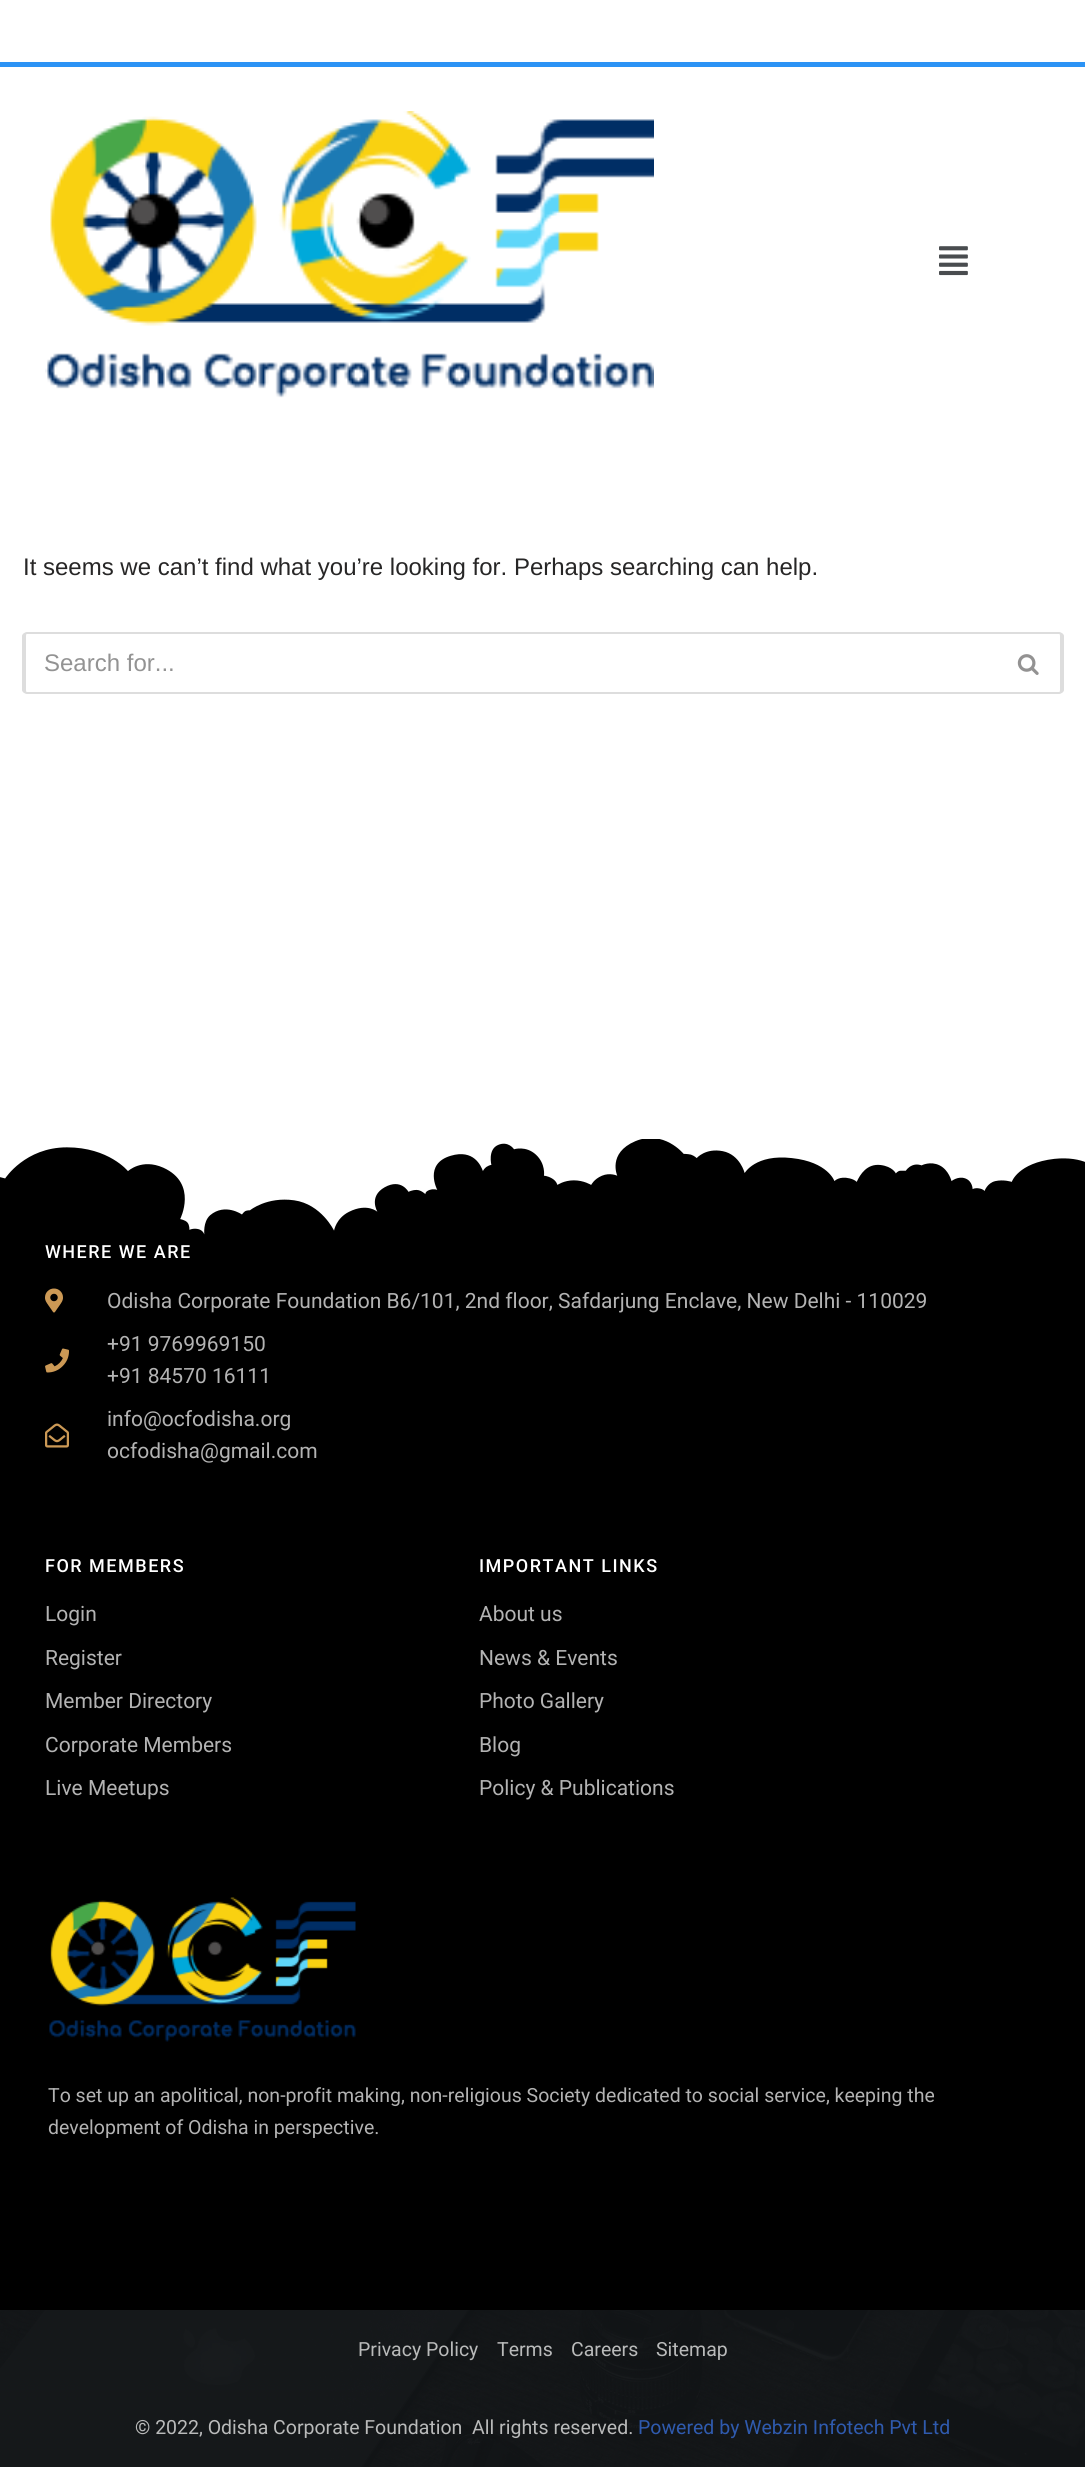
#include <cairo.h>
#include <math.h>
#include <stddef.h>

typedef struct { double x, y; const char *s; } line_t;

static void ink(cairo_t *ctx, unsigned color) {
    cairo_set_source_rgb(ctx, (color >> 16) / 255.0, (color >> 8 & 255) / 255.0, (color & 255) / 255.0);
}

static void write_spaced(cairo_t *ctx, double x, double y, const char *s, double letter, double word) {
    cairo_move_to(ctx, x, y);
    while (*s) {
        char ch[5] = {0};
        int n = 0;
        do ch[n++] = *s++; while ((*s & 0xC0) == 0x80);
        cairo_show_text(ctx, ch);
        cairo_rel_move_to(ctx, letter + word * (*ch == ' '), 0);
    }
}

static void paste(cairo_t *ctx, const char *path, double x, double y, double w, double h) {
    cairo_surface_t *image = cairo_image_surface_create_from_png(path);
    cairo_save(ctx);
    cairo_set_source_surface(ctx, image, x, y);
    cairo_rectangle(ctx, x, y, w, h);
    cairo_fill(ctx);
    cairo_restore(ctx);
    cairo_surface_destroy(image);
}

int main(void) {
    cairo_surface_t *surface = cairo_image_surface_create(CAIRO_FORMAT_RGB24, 1085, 2467);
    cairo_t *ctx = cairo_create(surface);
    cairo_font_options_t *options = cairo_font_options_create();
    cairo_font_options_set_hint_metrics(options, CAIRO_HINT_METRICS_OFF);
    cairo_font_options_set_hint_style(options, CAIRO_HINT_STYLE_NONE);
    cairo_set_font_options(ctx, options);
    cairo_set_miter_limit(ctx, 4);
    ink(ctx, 0xFFFFFF);
    cairo_paint(ctx);
    ink(ctx, 0x2C93F5);
    cairo_rectangle(ctx, 0, 62, 1085, 5);
    cairo_fill(ctx);
    paste(ctx, "media/1.png", 45, 111, 609, 287);
    paste(ctx, "media/2.png", 939, 246, 29, 30);
    cairo_select_font_face(ctx, "Liberation Sans", CAIRO_FONT_SLANT_NORMAL, CAIRO_FONT_WEIGHT_NORMAL);
    cairo_set_font_size(ctx, 24);
    ink(ctx, 0x272626);
    cairo_move_to(ctx, 23, 575);
    cairo_show_text(ctx, "It seems we can’t find what you’re looking for. Perhaps searching can help.");
    ink(ctx, 0xDDDDDD);
    cairo_set_fill_rule(ctx, CAIRO_FILL_RULE_EVEN_ODD);
    cairo_new_path(ctx);
    cairo_move_to(ctx, 27, 632);
    cairo_line_to(ctx, 996, 632);
    cairo_line_to(ctx, 996, 694);
    cairo_line_to(ctx, 27, 694);
    cairo_curve_to(ctx, 25, 694, 22, 692, 22, 690);
    cairo_line_to(ctx, 22, 636);
    cairo_curve_to(ctx, 22, 634, 25, 632, 27, 632);
    cairo_close_path(ctx);
    cairo_move_to(ctx, 27, 634);
    cairo_line_to(ctx, 996, 634);
    cairo_line_to(ctx, 996, 692);
    cairo_line_to(ctx, 27, 692);
    cairo_curve_to(ctx, 26, 692, 26, 691, 26, 690);
    cairo_line_to(ctx, 26, 636);
    cairo_curve_to(ctx, 26, 635, 26, 634, 27, 634);
    cairo_close_path(ctx);
    cairo_fill(ctx);
    ink(ctx, 0x939393);
    cairo_move_to(ctx, 44, 671);
    cairo_show_text(ctx, "Search for...");
    ink(ctx, 0xDDDDDD);
    cairo_new_path(ctx);
    cairo_move_to(ctx, 996, 632);
    cairo_line_to(ctx, 1059, 632);
    cairo_curve_to(ctx, 1061, 632, 1064, 634, 1064, 636);
    cairo_line_to(ctx, 1064, 690);
    cairo_curve_to(ctx, 1064, 692, 1061, 694, 1059, 694);
    cairo_line_to(ctx, 996, 694);
    cairo_close_path(ctx);
    cairo_move_to(ctx, 996, 634);
    cairo_line_to(ctx, 1059, 634);
    cairo_curve_to(ctx, 1060, 634, 1060, 635, 1060, 636);
    cairo_line_to(ctx, 1060, 690);
    cairo_curve_to(ctx, 1060, 691, 1060, 692, 1059, 692);
    cairo_line_to(ctx, 996, 692);
    cairo_close_path(ctx);
    cairo_fill(ctx);
    paste(ctx, "media/3.png", 1017, 654, 22, 21);
    ink(ctx, 0x000000);
    cairo_rectangle(ctx, 0, 1139, 1085, 1171);
    cairo_fill(ctx);
    paste(ctx, "media/4.png", 0, 1139, 1085, 96);
    cairo_select_font_face(ctx, "Roboto Medium", CAIRO_FONT_SLANT_NORMAL, CAIRO_FONT_WEIGHT_NORMAL);
    cairo_set_font_size(ctx, 18);
    ink(ctx, 0xFFFFFF);
    write_spaced(ctx, 45, 1258, "WHERE WE ARE", 1.5, 0);
    paste(ctx, "media/5.png", 45, 1288, 18, 25);
    cairo_select_font_face(ctx, "Roboto", CAIRO_FONT_SLANT_NORMAL, CAIRO_FONT_WEIGHT_NORMAL);
    cairo_set_font_size(ctx, 21);
    ink(ctx, 0xB3B3B3);
    cairo_move_to(ctx, 107, 1308);
    cairo_show_text(ctx, "Odisha Corporate Foundation B6/101, 2nd floor, Safdarjung Enclave, New Delhi - 110029");
    paste(ctx, "media/6.png", 45, 1348, 24, 25);
    cairo_move_to(ctx, 107, 1351);
    cairo_show_text(ctx, "+91 9769969150");
    cairo_move_to(ctx, 107, 1383);
    cairo_show_text(ctx, "+91 84570 16111");
    paste(ctx, "media/7.png", 45, 1423, 24, 25);
    cairo_move_to(ctx, 107, 1426);
    cairo_show_text(ctx, "info@ocfodisha.org");
    cairo_move_to(ctx, 107, 1458);
    cairo_show_text(ctx, "ocfodisha@gmail.com");
    cairo_select_font_face(ctx, "Roboto Medium", CAIRO_FONT_SLANT_NORMAL, CAIRO_FONT_WEIGHT_NORMAL);
    cairo_set_font_size(ctx, 18);
    ink(ctx, 0xFFFFFF);
    write_spaced(ctx, 45, 1572, "FOR MEMBERS", 1.5, 0);
    cairo_select_font_face(ctx, "Roboto", CAIRO_FONT_SLANT_NORMAL, CAIRO_FONT_WEIGHT_NORMAL);
    cairo_set_font_size(ctx, 21);
    ink(ctx, 0xB3B3B3);
    {
        static const line_t items[] = {
            {45, 1621, "Login"},
            {45, 1665, "Register"},
            {45, 1708, "Member Directory"},
            {45, 1752, "Corporate Members"},
            {45, 1795, "Live Meetups"},
        };
        for (size_t i = 0; i < sizeof items / sizeof *items; i++) {
            cairo_move_to(ctx, items[i].x, items[i].y);
            cairo_show_text(ctx, items[i].s);
        }
    }
    cairo_select_font_face(ctx, "Roboto Medium", CAIRO_FONT_SLANT_NORMAL, CAIRO_FONT_WEIGHT_NORMAL);
    cairo_set_font_size(ctx, 18);
    ink(ctx, 0xFFFFFF);
    write_spaced(ctx, 479, 1572, "IMPORTANT LINKS", 1.5, 0);
    cairo_select_font_face(ctx, "Roboto", CAIRO_FONT_SLANT_NORMAL, CAIRO_FONT_WEIGHT_NORMAL);
    cairo_set_font_size(ctx, 21);
    ink(ctx, 0xB3B3B3);
    {
        static const line_t items[] = {
            {479, 1621, "About us"},
            {479, 1665, "News & Events"},
            {479, 1708, "Photo Gallery"},
            {479, 1752, "Blog"},
            {479, 1795, "Policy & Publications"},
        };
        for (size_t i = 0; i < sizeof items / sizeof *items; i++) {
            cairo_move_to(ctx, items[i].x, items[i].y);
            cairo_show_text(ctx, items[i].s);
        }
    }
    paste(ctx, "media/8.png", 49, 1897, 307, 145);
    cairo_set_font_size(ctx, 19.5);
    cairo_move_to(ctx, 48, 2102);
    cairo_show_text(ctx, "To set up an apolitical, non-profit making, non-religious Society dedicated to social service, keeping the");
    cairo_move_to(ctx, 48, 2134);
    cairo_show_text(ctx, "development of Odisha in perspective.");
    paste(ctx, "media/9.png", 0, 2310, 1085, 157);
    ink(ctx, 0xB9BABA);
    {
        static const line_t items[] = {
            {358, 2356, "Privacy Policy"},
            {497, 2356, "Terms"},
            {571, 2356, "Careers"},
            {656, 2356, "Sitemap"},
            {135, 2434, "© 2022, Odisha Corporate Foundation  All rights reserved."},
        };
        for (size_t i = 0; i < sizeof items / sizeof *items; i++) {
            cairo_move_to(ctx, items[i].x, items[i].y);
            cairo_show_text(ctx, items[i].s);
        }
    }
    ink(ctx, 0x2F5AAE);
    cairo_move_to(ctx, 638, 2434);
    cairo_show_text(ctx, "Powered by Webzin Infotech Pvt Ltd");
    cairo_surface_write_to_png(surface, "image.png");
    cairo_font_options_destroy(options);
    cairo_destroy(ctx);
    cairo_surface_destroy(surface);
    return 0;
}
